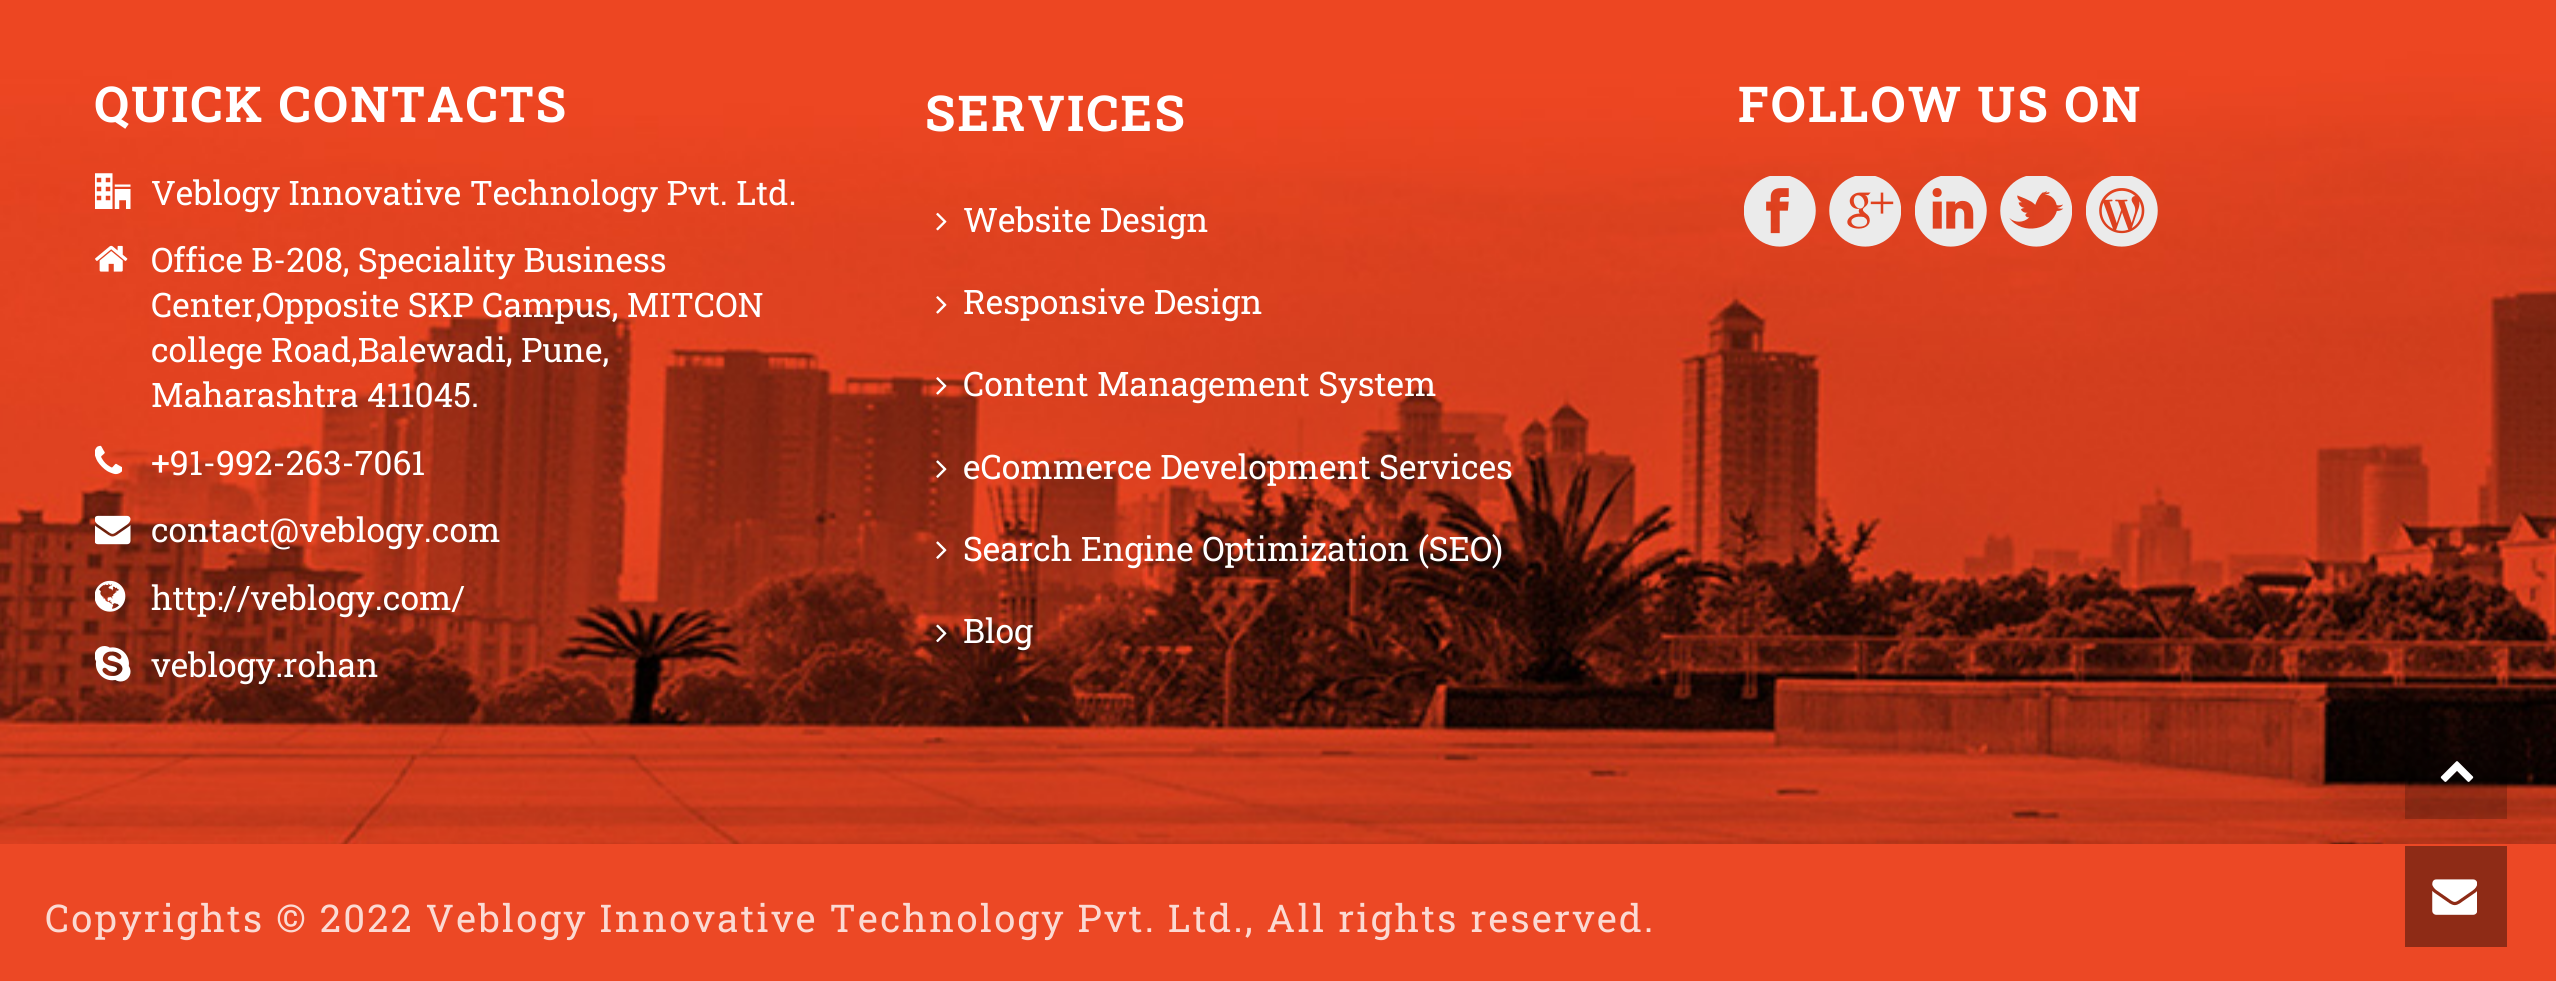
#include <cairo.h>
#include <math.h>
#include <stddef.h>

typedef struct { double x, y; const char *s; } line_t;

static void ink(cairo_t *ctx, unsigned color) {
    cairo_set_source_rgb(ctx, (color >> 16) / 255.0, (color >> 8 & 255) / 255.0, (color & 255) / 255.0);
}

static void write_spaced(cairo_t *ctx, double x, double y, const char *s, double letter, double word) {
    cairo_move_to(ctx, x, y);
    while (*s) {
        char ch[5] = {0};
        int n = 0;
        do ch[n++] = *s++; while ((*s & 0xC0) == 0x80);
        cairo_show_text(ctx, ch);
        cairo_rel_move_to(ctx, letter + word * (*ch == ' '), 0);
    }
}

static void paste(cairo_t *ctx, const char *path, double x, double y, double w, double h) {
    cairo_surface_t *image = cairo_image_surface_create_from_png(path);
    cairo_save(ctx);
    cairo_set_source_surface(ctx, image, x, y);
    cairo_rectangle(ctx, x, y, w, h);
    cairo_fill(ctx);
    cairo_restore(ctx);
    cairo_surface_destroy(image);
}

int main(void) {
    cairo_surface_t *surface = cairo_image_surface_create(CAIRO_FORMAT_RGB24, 2556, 981);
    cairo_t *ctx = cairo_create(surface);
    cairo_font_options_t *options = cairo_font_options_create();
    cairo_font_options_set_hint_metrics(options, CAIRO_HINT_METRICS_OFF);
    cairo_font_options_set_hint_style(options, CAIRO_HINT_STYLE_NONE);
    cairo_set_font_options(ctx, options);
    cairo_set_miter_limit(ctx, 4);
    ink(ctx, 0xFFFFFF);
    cairo_paint(ctx);
    paste(ctx, "media/1.png", 0, 0, 2556, 844);
    cairo_select_font_face(ctx, "Roboto Slab", CAIRO_FONT_SLANT_NORMAL, CAIRO_FONT_WEIGHT_BOLD);
    cairo_set_font_size(ctx, 49.5);
    ink(ctx, 0xFFFFFF);
    write_spaced(ctx, 94, 122, "QUICK CONTACTS", 2.25, 0);
    paste(ctx, "media/2.png", 95, 173, 36, 36);
    cairo_select_font_face(ctx, "Roboto Slab", CAIRO_FONT_SLANT_NORMAL, CAIRO_FONT_WEIGHT_NORMAL);
    cairo_set_font_size(ctx, 33.75);
    cairo_move_to(ctx, 151, 205);
    cairo_show_text(ctx, "Veblogy Innovative Technology Pvt. Ltd.");
    paste(ctx, "media/3.png", 95, 245, 33, 27);
    {
        static const line_t items[] = {
            {151, 272, "Office B-208, Speciality Business"},
            {151, 317, "Center,Opposite SKP Campus, MITCON"},
            {151, 362, "college Road,Balewadi, Pune,"},
            {151, 407, "Maharashtra 411045."},
        };
        for (size_t i = 0; i < sizeof items / sizeof *items; i++) {
            cairo_move_to(ctx, items[i].x, items[i].y);
            cairo_show_text(ctx, items[i].s);
        }
    }
    paste(ctx, "media/4.png", 95, 445, 27, 30);
    cairo_move_to(ctx, 151, 475);
    cairo_show_text(ctx, "+91-992-263-7061");
    paste(ctx, "media/5.png", 95, 515, 36, 30);
    cairo_move_to(ctx, 151, 542);
    cairo_show_text(ctx, "contact@veblogy.com");
    paste(ctx, "media/6.png", 95, 580, 31, 32);
    cairo_move_to(ctx, 151, 610);
    cairo_show_text(ctx, "http://veblogy.com/");
    paste(ctx, "media/7.png", 95, 646, 36, 36);
    cairo_move_to(ctx, 151, 677);
    cairo_show_text(ctx, "veblogy.rohan");
    cairo_select_font_face(ctx, "Roboto Slab", CAIRO_FONT_SLANT_NORMAL, CAIRO_FONT_WEIGHT_BOLD);
    cairo_set_font_size(ctx, 49.5);
    write_spaced(ctx, 925, 131, "SERVICES", 2.25, 0);
    paste(ctx, "media/8.png", 936, 212, 11, 19);
    cairo_select_font_face(ctx, "Roboto Slab", CAIRO_FONT_SLANT_NORMAL, CAIRO_FONT_WEIGHT_NORMAL);
    cairo_set_font_size(ctx, 33.75);
    cairo_move_to(ctx, 963, 232);
    cairo_show_text(ctx, "Website Design");
    paste(ctx, "media/9.png", 936, 296, 11, 18);
    cairo_move_to(ctx, 963, 314);
    cairo_show_text(ctx, "Responsive Design");
    paste(ctx, "media/10.png", 936, 377, 11, 18);
    cairo_move_to(ctx, 963, 396);
    cairo_show_text(ctx, "Content Management System");
    paste(ctx, "media/11.png", 936, 460, 11, 18);
    cairo_move_to(ctx, 963, 479);
    cairo_show_text(ctx, "eCommerce Development Services");
    paste(ctx, "media/12.png", 936, 541, 11, 18);
    cairo_move_to(ctx, 963, 561);
    cairo_show_text(ctx, "Search Engine Optimization (SEO)");
    paste(ctx, "media/13.png", 936, 624, 11, 19);
    cairo_move_to(ctx, 963, 643);
    cairo_show_text(ctx, "Blog");
    cairo_select_font_face(ctx, "Roboto Slab", CAIRO_FONT_SLANT_NORMAL, CAIRO_FONT_WEIGHT_BOLD);
    cairo_set_font_size(ctx, 49.5);
    write_spaced(ctx, 1738, 122, "FOLLOW US ON", 2.25, 0);
    paste(ctx, "media/14.png", 1744, 176, 72, 71);
    paste(ctx, "media/15.png", 1829, 176, 72, 71);
    paste(ctx, "media/16.png", 1915, 176, 72, 71);
    paste(ctx, "media/17.png", 2000, 176, 72, 71);
    paste(ctx, "media/18.png", 2086, 176, 72, 71);
    ink(ctx, 0xEC4825);
    cairo_rectangle(ctx, 0, 844, 2556, 137);
    cairo_fill(ctx);
    cairo_select_font_face(ctx, "Roboto Slab", CAIRO_FONT_SLANT_NORMAL, CAIRO_FONT_WEIGHT_NORMAL);
    cairo_set_font_size(ctx, 38.25);
    ink(ctx, 0xFBDAD3);
    write_spaced(ctx, 45, 932, "Copyrights © 2022 Veblogy Innovative Technology Pvt. Ltd., All rights reserved.", 2.25, 0);
    cairo_set_source_rgba(ctx, 0, 0, 0, 0.2);
    cairo_rectangle(ctx, 2405, 718, 102, 101);
    cairo_fill(ctx);
    paste(ctx, "media/19.png", 2440, 761, 34, 21);
    ink(ctx, 0x8E2B16);
    cairo_rectangle(ctx, 2405, 846, 102, 101);
    cairo_fill(ctx);
    paste(ctx, "media/20.png", 2432, 879, 45, 36);
    cairo_surface_write_to_png(surface, "image.png");
    cairo_font_options_destroy(options);
    cairo_destroy(ctx);
    cairo_surface_destroy(surface);
    return 0;
}
